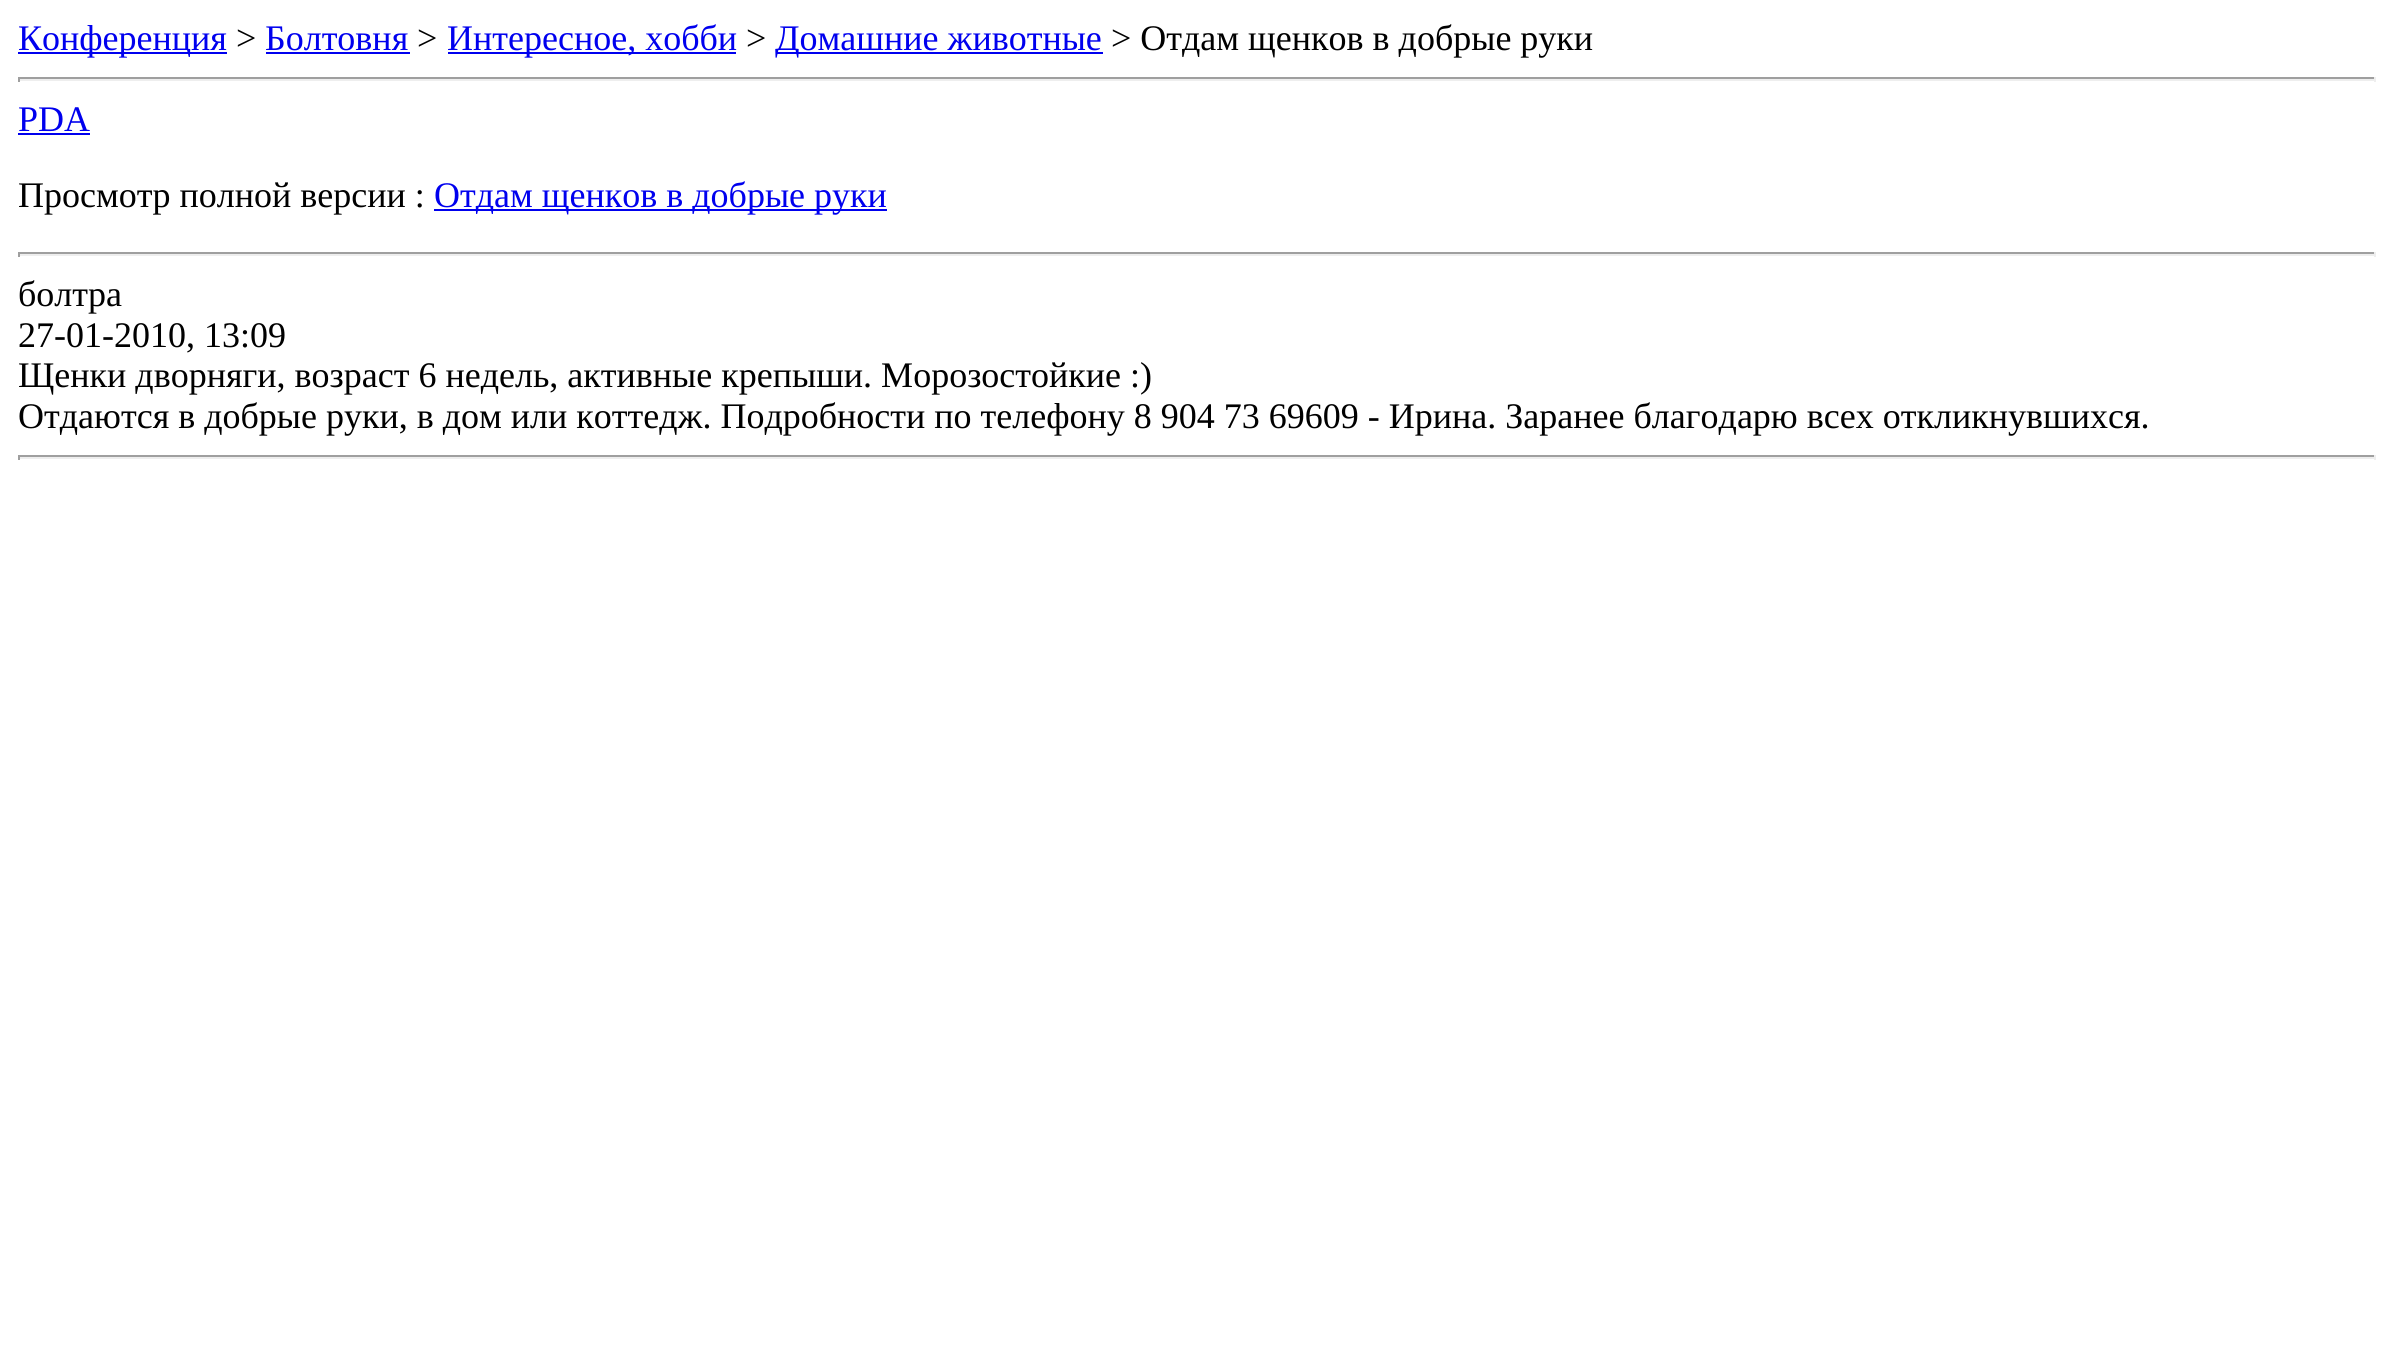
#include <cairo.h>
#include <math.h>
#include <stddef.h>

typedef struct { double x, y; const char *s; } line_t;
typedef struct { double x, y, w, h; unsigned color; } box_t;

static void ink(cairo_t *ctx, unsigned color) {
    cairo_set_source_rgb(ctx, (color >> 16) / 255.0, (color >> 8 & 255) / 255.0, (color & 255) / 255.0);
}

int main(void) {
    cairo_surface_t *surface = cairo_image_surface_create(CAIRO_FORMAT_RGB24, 2393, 1368);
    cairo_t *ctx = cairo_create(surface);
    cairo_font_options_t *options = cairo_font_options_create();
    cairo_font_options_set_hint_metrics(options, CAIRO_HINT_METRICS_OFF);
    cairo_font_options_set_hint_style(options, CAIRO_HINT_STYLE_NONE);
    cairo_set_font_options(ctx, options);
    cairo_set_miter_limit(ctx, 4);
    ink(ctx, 0xFFFFFF);
    cairo_paint(ctx);
    ink(ctx, 0x0000EE);
    cairo_rectangle(ctx, 18, 52, 209, 2);
    cairo_fill(ctx);
    cairo_select_font_face(ctx, "Liberation Serif", CAIRO_FONT_SLANT_NORMAL, CAIRO_FONT_WEIGHT_NORMAL);
    cairo_set_font_size(ctx, 36);
    cairo_move_to(ctx, 18, 50);
    cairo_show_text(ctx, "Конференция");
    ink(ctx, 0x000000);
    cairo_move_to(ctx, 236, 50);
    cairo_show_text(ctx, ">");
    ink(ctx, 0x0000EE);
    cairo_move_to(ctx, 265, 50);
    cairo_show_text(ctx, "Болтовня");
    cairo_rectangle(ctx, 266, 52, 144, 2);
    cairo_fill(ctx);
    ink(ctx, 0x000000);
    cairo_move_to(ctx, 417, 50);
    cairo_show_text(ctx, ">");
    ink(ctx, 0x0000EE);
    cairo_rectangle(ctx, 448, 52, 288, 2);
    cairo_fill(ctx);
    cairo_move_to(ctx, 447, 50);
    cairo_show_text(ctx, "Интересное, хобби");
    ink(ctx, 0x000000);
    cairo_move_to(ctx, 746, 50);
    cairo_show_text(ctx, ">");
    ink(ctx, 0x0000EE);
    cairo_rectangle(ctx, 776, 52, 327, 2);
    cairo_fill(ctx);
    cairo_move_to(ctx, 775, 50);
    cairo_show_text(ctx, "Домашние животные");
    ink(ctx, 0x000000);
    cairo_move_to(ctx, 1111, 50);
    cairo_show_text(ctx, "> Отдам щенков в добрые руки");
    {
        static const box_t items[] = {
            {18, 77, 2358, 2, 0x9F9F9F},
            {2374, 77, 2, 5, 0xEEEEEE},
            {18, 79, 2358, 2, 0xEEEEEE},
            {18, 77, 2, 5, 0x9F9F9F},
        };
        for (size_t i = 0; i < sizeof items / sizeof *items; i++) {
            ink(ctx, items[i].color);
            cairo_rectangle(ctx, items[i].x, items[i].y, items[i].w, items[i].h);
            cairo_fill(ctx);
        }
    }
    ink(ctx, 0x0000EE);
    cairo_move_to(ctx, 18, 131);
    cairo_show_text(ctx, "PDA");
    cairo_rectangle(ctx, 18, 133, 72, 2);
    cairo_fill(ctx);
    ink(ctx, 0x000000);
    cairo_move_to(ctx, 18, 207);
    cairo_show_text(ctx, "Просмотр полной версии :");
    ink(ctx, 0x0000EE);
    cairo_rectangle(ctx, 434, 209, 453, 2);
    cairo_fill(ctx);
    cairo_move_to(ctx, 434, 207);
    cairo_show_text(ctx, "Отдам щенков в добрые руки");
    {
        static const box_t items[] = {
            {18, 252, 2358, 2, 0x9F9F9F},
            {2374, 252, 2, 5, 0xEEEEEE},
            {18, 254, 2358, 2, 0xEEEEEE},
            {18, 252, 2, 5, 0x9F9F9F},
        };
        for (size_t i = 0; i < sizeof items / sizeof *items; i++) {
            ink(ctx, items[i].color);
            cairo_rectangle(ctx, items[i].x, items[i].y, items[i].w, items[i].h);
            cairo_fill(ctx);
        }
    }
    ink(ctx, 0x000000);
    {
        static const line_t items[] = {
            {18, 306, "болтра"},
            {18, 347, "27-01-2010, 13:09"},
            {18, 387, "Щенки дворняги, возраст 6 недель, активные крепыши. Морозостойкие :)"},
            {18, 428, "Отдаются в добрые руки, в дом или коттедж. Подробности по телефону 8 904 73 69609 - Ирина. Заранее благодарю всех откликнувшихся."},
        };
        for (size_t i = 0; i < sizeof items / sizeof *items; i++) {
            cairo_move_to(ctx, items[i].x, items[i].y);
            cairo_show_text(ctx, items[i].s);
        }
    }
    {
        static const box_t items[] = {
            {18, 455, 2358, 2, 0x9F9F9F},
            {2374, 455, 2, 5, 0xEEEEEE},
            {18, 457, 2358, 2, 0xEEEEEE},
            {18, 455, 2, 5, 0x9F9F9F},
        };
        for (size_t i = 0; i < sizeof items / sizeof *items; i++) {
            ink(ctx, items[i].color);
            cairo_rectangle(ctx, items[i].x, items[i].y, items[i].w, items[i].h);
            cairo_fill(ctx);
        }
    }
    cairo_surface_write_to_png(surface, "image.png");
    cairo_font_options_destroy(options);
    cairo_destroy(ctx);
    cairo_surface_destroy(surface);
    return 0;
}
